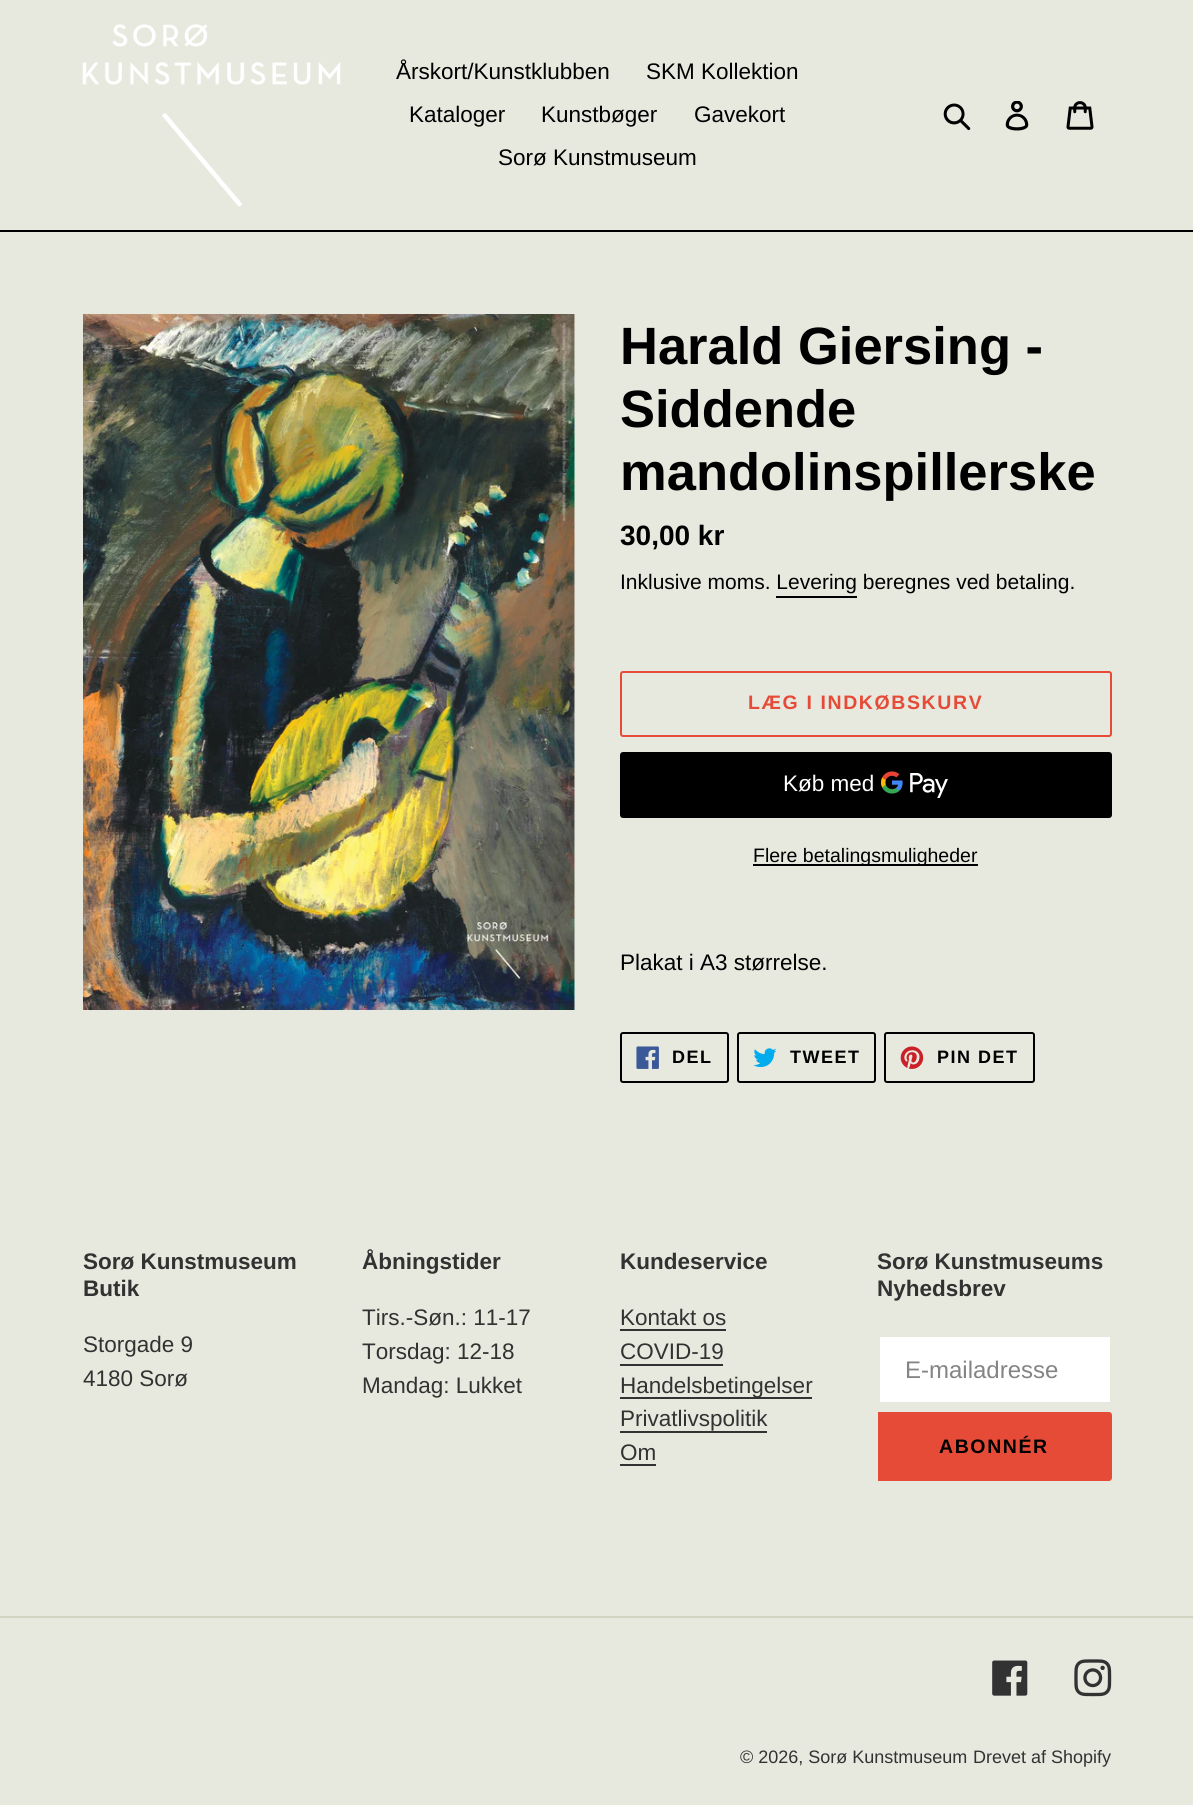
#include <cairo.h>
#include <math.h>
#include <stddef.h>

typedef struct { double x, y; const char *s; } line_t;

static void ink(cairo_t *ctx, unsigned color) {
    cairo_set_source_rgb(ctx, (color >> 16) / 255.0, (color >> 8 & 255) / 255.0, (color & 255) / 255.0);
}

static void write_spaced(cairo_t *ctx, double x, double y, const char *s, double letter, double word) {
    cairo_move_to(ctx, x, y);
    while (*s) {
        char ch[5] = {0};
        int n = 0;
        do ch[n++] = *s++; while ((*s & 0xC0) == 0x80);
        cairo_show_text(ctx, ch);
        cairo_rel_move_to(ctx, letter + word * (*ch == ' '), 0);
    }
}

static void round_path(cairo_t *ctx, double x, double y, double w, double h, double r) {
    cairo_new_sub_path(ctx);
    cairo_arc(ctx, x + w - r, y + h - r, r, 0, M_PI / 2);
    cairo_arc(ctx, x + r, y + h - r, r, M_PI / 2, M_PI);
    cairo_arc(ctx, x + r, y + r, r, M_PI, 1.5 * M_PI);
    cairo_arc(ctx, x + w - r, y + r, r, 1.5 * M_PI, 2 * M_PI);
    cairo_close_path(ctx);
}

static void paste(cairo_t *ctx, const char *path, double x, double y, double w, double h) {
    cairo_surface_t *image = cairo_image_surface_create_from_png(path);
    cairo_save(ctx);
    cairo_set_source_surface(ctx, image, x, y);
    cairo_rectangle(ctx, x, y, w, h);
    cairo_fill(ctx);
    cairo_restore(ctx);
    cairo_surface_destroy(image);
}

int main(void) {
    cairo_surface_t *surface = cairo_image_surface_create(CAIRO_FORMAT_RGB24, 1193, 1805);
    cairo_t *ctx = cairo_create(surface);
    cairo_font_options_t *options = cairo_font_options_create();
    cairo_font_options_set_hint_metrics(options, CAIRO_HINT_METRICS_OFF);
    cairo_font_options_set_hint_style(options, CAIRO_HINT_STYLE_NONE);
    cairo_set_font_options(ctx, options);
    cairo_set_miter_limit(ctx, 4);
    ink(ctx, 0xE7E9DF);
    cairo_paint(ctx);
    ink(ctx, 0x000000);
    cairo_rectangle(ctx, 0, 230, 1193, 2);
    cairo_fill(ctx);
    paste(ctx, "media/1.png", 82, 24, 259, 183);
    cairo_select_font_face(ctx, "Liberation Sans", CAIRO_FONT_SLANT_NORMAL, CAIRO_FONT_WEIGHT_NORMAL);
    cairo_set_font_size(ctx, 22.5);
    {
        static const line_t items[] = {
            {396, 79, "Årskort/Kunstklubben"},
            {646, 79, "SKM Kollektion"},
            {409, 122, "Kataloger"},
            {541, 122, "Kunstbøger"},
            {694, 122, "Gavekort"},
            {498, 165, "Sorø Kunstmuseum"},
        };
        for (size_t i = 0; i < sizeof items / sizeof *items; i++) {
            cairo_move_to(ctx, items[i].x, items[i].y);
            cairo_show_text(ctx, items[i].s);
        }
    }
    paste(ctx, "media/2.png", 943, 103, 28, 28);
    paste(ctx, "media/3.png", 1005, 101, 24, 30);
    paste(ctx, "media/4.png", 1066, 101, 28, 29);
    paste(ctx, "media/5.png", 83, 314, 492, 696);
    cairo_select_font_face(ctx, "Liberation Sans", CAIRO_FONT_SLANT_NORMAL, CAIRO_FONT_WEIGHT_BOLD);
    cairo_set_font_size(ctx, 52.5);
    {
        static const line_t items[] = {
            {620, 364, "Harald Giersing -"},
            {620, 427, "Siddende"},
            {620, 490, "mandolinspillerske"},
        };
        for (size_t i = 0; i < sizeof items / sizeof *items; i++) {
            cairo_move_to(ctx, items[i].x, items[i].y);
            cairo_show_text(ctx, items[i].s);
        }
    }
    cairo_set_font_size(ctx, 28);
    cairo_move_to(ctx, 620, 545);
    cairo_show_text(ctx, "30,00 kr");
    cairo_select_font_face(ctx, "Liberation Sans", CAIRO_FONT_SLANT_NORMAL, CAIRO_FONT_WEIGHT_NORMAL);
    cairo_set_font_size(ctx, 21);
    cairo_move_to(ctx, 620, 589);
    cairo_show_text(ctx, "Inklusive moms. Levering beregnes ved betaling.");
    cairo_rectangle(ctx, 776, 596, 81, 2);
    cairo_fill(ctx);
    round_path(ctx, 621, 672, 490, 64, 2);
    ink(ctx, 0xE64B38);
    cairo_stroke(ctx);
    cairo_select_font_face(ctx, "Liberation Sans", CAIRO_FONT_SLANT_NORMAL, CAIRO_FONT_WEIGHT_BOLD);
    cairo_set_font_size(ctx, 19.5);
    write_spaced(ctx, 748, 709, "LÆG I INDKØBSKURV", 1.6, 0);
    ink(ctx, 0x000000);
    round_path(ctx, 620, 752, 492, 66, 3);
    cairo_fill(ctx);
    cairo_select_font_face(ctx, "Liberation Sans", CAIRO_FONT_SLANT_NORMAL, CAIRO_FONT_WEIGHT_NORMAL);
    cairo_set_font_size(ctx, 22.5);
    ink(ctx, 0xFFFFFF);
    cairo_move_to(ctx, 783, 791);
    cairo_show_text(ctx, "Køb med");
    paste(ctx, "media/6.png", 881, 771, 67, 27);
    ink(ctx, 0x000000);
    cairo_rectangle(ctx, 753, 864, 225, 2);
    cairo_fill(ctx);
    cairo_set_font_size(ctx, 19.5);
    cairo_move_to(ctx, 753, 862);
    cairo_show_text(ctx, "Flere betalingsmuligheder");
    cairo_set_font_size(ctx, 22.5);
    cairo_move_to(ctx, 620, 970);
    cairo_show_text(ctx, "Plakat i A3 størrelse.");
    round_path(ctx, 621, 1033, 107, 49, 2);
    cairo_stroke(ctx);
    paste(ctx, "media/7.png", 636, 1046, 23, 23);
    cairo_select_font_face(ctx, "Liberation Sans", CAIRO_FONT_SLANT_NORMAL, CAIRO_FONT_WEIGHT_BOLD);
    cairo_set_font_size(ctx, 18);
    write_spaced(ctx, 672, 1063, "DEL", 1.5, 0);
    round_path(ctx, 738, 1033, 137, 49, 2);
    cairo_stroke(ctx);
    paste(ctx, "media/8.png", 753, 1048, 24, 20);
    write_spaced(ctx, 790, 1063, "TWEET", 1.5, 0);
    round_path(ctx, 885, 1033, 149, 49, 2);
    cairo_stroke(ctx);
    paste(ctx, "media/9.png", 900, 1046, 24, 23);
    write_spaced(ctx, 937, 1063, "PIN DET", 1.5, 0);
    cairo_set_font_size(ctx, 22.5);
    ink(ctx, 0x333232);
    cairo_move_to(ctx, 83, 1269);
    cairo_show_text(ctx, "Sorø Kunstmuseum");
    cairo_move_to(ctx, 83, 1296);
    cairo_show_text(ctx, "Butik");
    cairo_select_font_face(ctx, "Liberation Sans", CAIRO_FONT_SLANT_NORMAL, CAIRO_FONT_WEIGHT_NORMAL);
    cairo_move_to(ctx, 83, 1352);
    cairo_show_text(ctx, "Storgade 9");
    cairo_move_to(ctx, 83, 1386);
    cairo_show_text(ctx, "4180 Sorø");
    cairo_select_font_face(ctx, "Liberation Sans", CAIRO_FONT_SLANT_NORMAL, CAIRO_FONT_WEIGHT_BOLD);
    cairo_move_to(ctx, 362, 1269);
    cairo_show_text(ctx, "Åbningstider");
    cairo_select_font_face(ctx, "Liberation Sans", CAIRO_FONT_SLANT_NORMAL, CAIRO_FONT_WEIGHT_NORMAL);
    {
        static const line_t items[] = {
            {362, 1325, "Tirs.-Søn.: 11-17"},
            {362, 1359, "Torsdag: 12-18"},
            {362, 1393, "Mandag: Lukket"},
        };
        for (size_t i = 0; i < sizeof items / sizeof *items; i++) {
            cairo_move_to(ctx, items[i].x, items[i].y);
            cairo_show_text(ctx, items[i].s);
        }
    }
    cairo_select_font_face(ctx, "Liberation Sans", CAIRO_FONT_SLANT_NORMAL, CAIRO_FONT_WEIGHT_BOLD);
    cairo_move_to(ctx, 620, 1269);
    cairo_show_text(ctx, "Kundeservice");
    cairo_select_font_face(ctx, "Liberation Sans", CAIRO_FONT_SLANT_NORMAL, CAIRO_FONT_WEIGHT_NORMAL);
    cairo_move_to(ctx, 620, 1325);
    cairo_show_text(ctx, "Kontakt os");
    cairo_rectangle(ctx, 620, 1329, 106, 2);
    cairo_fill(ctx);
    cairo_move_to(ctx, 620, 1359);
    cairo_show_text(ctx, "COVID-19");
    cairo_rectangle(ctx, 620, 1364, 103, 2);
    cairo_fill(ctx);
    cairo_rectangle(ctx, 620, 1397, 192, 2);
    cairo_fill(ctx);
    cairo_move_to(ctx, 620, 1393);
    cairo_show_text(ctx, "Handelsbetingelser");
    cairo_move_to(ctx, 620, 1426);
    cairo_show_text(ctx, "Privatlivspolitik");
    cairo_rectangle(ctx, 620, 1431, 147, 2);
    cairo_fill(ctx);
    cairo_move_to(ctx, 620, 1460);
    cairo_show_text(ctx, "Om");
    cairo_rectangle(ctx, 620, 1464, 36, 2);
    cairo_fill(ctx);
    cairo_select_font_face(ctx, "Liberation Sans", CAIRO_FONT_SLANT_NORMAL, CAIRO_FONT_WEIGHT_BOLD);
    cairo_move_to(ctx, 877, 1269);
    cairo_show_text(ctx, "Sorø Kunstmuseums");
    cairo_move_to(ctx, 877, 1296);
    cairo_show_text(ctx, "Nyhedsbrev");
    ink(ctx, 0xFFFFFF);
    cairo_new_path(ctx);
    cairo_move_to(ctx, 881, 1336);
    cairo_line_to(ctx, 1111, 1336);
    cairo_line_to(ctx, 1111, 1403);
    cairo_line_to(ctx, 881, 1403);
    cairo_curve_to(ctx, 880, 1403, 879, 1402, 879, 1401);
    cairo_line_to(ctx, 879, 1338);
    cairo_curve_to(ctx, 879, 1337, 880, 1336, 881, 1336);
    cairo_close_path(ctx);
    cairo_fill_preserve(ctx);
    ink(ctx, 0xE7E9DF);
    cairo_stroke(ctx);
    cairo_select_font_face(ctx, "Liberation Sans", CAIRO_FONT_SLANT_NORMAL, CAIRO_FONT_WEIGHT_NORMAL);
    cairo_set_font_size(ctx, 24);
    ink(ctx, 0x858484);
    cairo_move_to(ctx, 905, 1378);
    cairo_show_text(ctx, "E-mailadresse");
    ink(ctx, 0xE64B38);
    cairo_new_path(ctx);
    cairo_move_to(ctx, 878, 1412);
    cairo_line_to(ctx, 1109, 1412);
    cairo_curve_to(ctx, 1110.5, 1412, 1112, 1413.5, 1112, 1415);
    cairo_line_to(ctx, 1112, 1478);
    cairo_curve_to(ctx, 1112, 1479.5, 1110.5, 1481, 1109, 1481);
    cairo_line_to(ctx, 878, 1481);
    cairo_close_path(ctx);
    cairo_fill(ctx);
    cairo_select_font_face(ctx, "Liberation Sans", CAIRO_FONT_SLANT_NORMAL, CAIRO_FONT_WEIGHT_BOLD);
    cairo_set_font_size(ctx, 19.5);
    ink(ctx, 0x000000);
    write_spaced(ctx, 939, 1453, "ABONNÉR", 1.6, 0);
    ink(ctx, 0xD0D4C1);
    cairo_rectangle(ctx, 0, 1616, 1193, 2);
    cairo_fill(ctx);
    paste(ctx, "media/10.png", 992, 1660, 36, 36);
    paste(ctx, "media/11.png", 1074, 1659, 38, 38);
    cairo_select_font_face(ctx, "Liberation Sans", CAIRO_FONT_SLANT_NORMAL, CAIRO_FONT_WEIGHT_NORMAL);
    cairo_set_font_size(ctx, 18);
    ink(ctx, 0x333232);
    cairo_move_to(ctx, 740, 1763);
    cairo_show_text(ctx, "© 2026, Sorø Kunstmuseum");
    cairo_move_to(ctx, 973, 1763);
    cairo_show_text(ctx, "Drevet af Shopify");
    cairo_surface_write_to_png(surface, "image.png");
    cairo_font_options_destroy(options);
    cairo_destroy(ctx);
    cairo_surface_destroy(surface);
    return 0;
}
